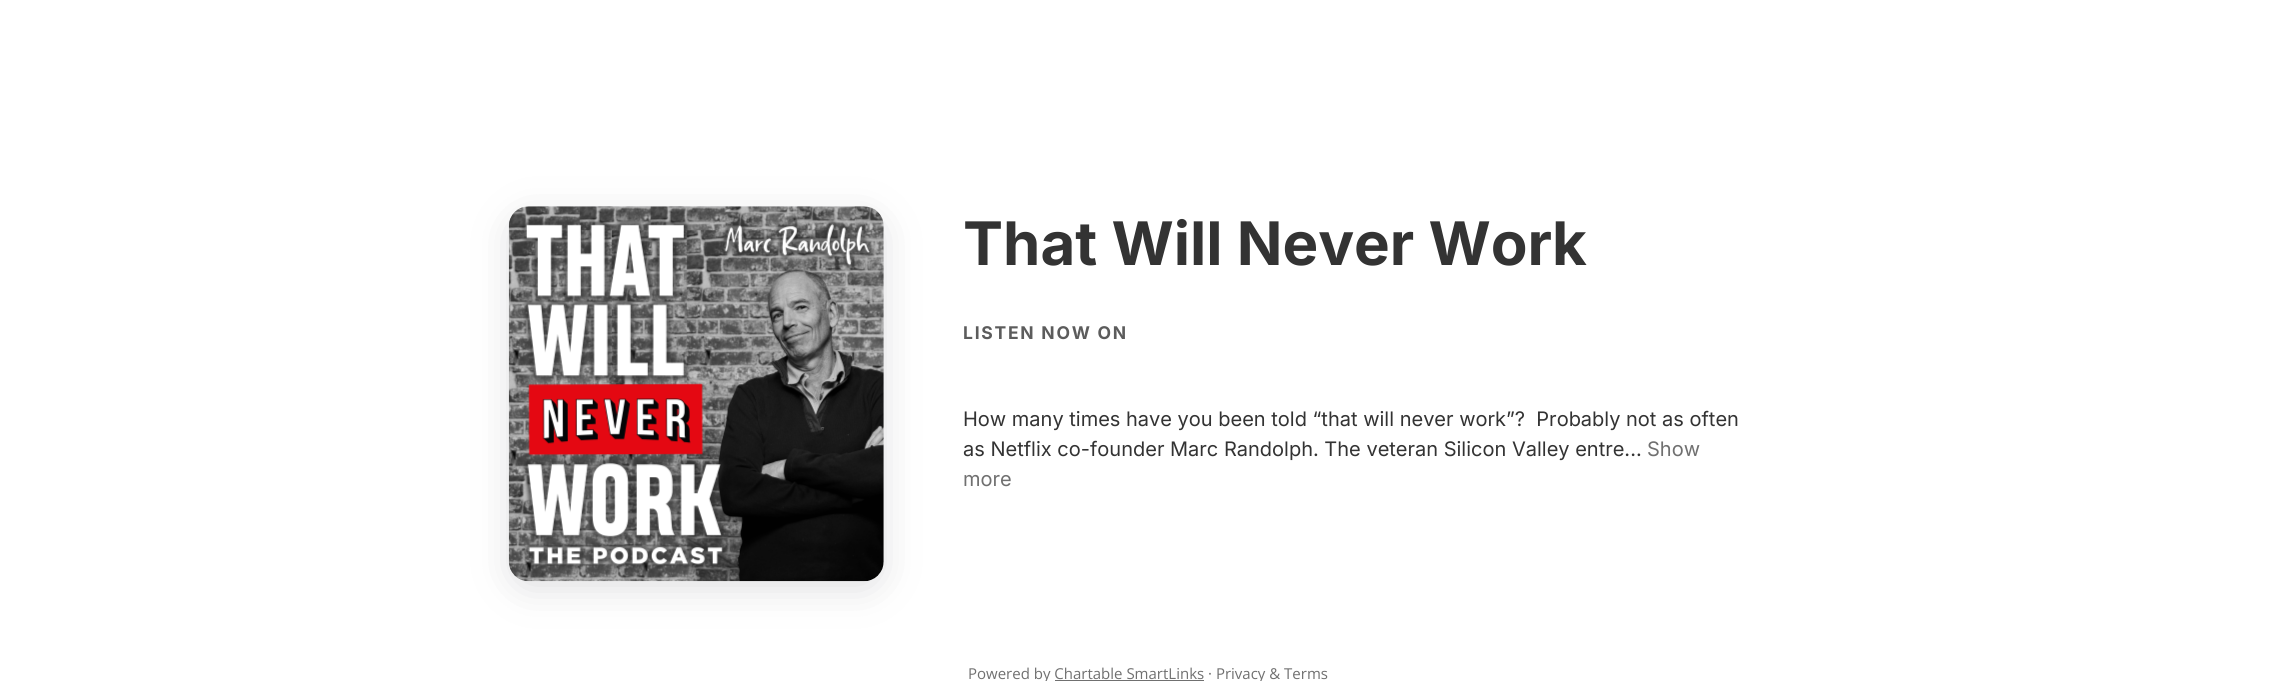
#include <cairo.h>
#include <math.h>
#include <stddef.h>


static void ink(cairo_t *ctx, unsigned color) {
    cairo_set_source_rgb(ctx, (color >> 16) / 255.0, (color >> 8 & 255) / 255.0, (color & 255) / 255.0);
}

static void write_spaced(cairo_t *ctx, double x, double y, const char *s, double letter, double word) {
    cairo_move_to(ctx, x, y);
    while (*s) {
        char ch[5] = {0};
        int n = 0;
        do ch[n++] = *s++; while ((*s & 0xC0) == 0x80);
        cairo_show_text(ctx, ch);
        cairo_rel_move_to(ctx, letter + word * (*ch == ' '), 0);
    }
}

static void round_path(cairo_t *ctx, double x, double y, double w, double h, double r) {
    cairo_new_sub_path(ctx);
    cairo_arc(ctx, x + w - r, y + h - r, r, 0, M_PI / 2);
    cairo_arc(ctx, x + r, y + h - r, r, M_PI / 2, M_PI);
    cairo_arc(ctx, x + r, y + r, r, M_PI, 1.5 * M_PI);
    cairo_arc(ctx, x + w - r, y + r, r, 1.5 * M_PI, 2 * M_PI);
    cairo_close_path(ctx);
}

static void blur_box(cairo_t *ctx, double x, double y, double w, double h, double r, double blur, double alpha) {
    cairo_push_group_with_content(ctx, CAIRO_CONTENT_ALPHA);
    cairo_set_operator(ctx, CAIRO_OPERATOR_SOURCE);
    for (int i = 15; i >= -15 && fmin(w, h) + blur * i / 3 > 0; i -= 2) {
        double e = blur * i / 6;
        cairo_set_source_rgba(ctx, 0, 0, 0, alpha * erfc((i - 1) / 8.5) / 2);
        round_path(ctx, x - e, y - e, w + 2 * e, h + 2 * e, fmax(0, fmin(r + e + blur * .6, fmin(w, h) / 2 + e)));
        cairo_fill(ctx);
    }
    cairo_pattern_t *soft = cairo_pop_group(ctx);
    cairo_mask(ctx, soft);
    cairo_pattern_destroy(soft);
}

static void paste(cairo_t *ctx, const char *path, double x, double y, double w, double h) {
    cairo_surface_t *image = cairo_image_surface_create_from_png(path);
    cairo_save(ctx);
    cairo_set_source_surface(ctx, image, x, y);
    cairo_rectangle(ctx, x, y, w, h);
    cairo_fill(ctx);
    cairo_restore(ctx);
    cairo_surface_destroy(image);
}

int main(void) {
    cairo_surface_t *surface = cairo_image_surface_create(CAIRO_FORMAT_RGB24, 2296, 681);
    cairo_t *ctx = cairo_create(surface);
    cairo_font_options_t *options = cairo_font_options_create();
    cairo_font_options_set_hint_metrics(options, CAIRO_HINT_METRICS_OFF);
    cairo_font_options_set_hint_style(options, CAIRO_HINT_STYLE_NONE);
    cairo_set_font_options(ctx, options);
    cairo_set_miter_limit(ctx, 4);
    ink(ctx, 0xFFFFFF);
    cairo_paint(ctx);
    ink(ctx, 0x64646F);
    blur_box(ctx, 509, 215, 375, 375, 20, 18, 0.2);
    paste(ctx, "media/1.png", 508, 206, 376, 376);
    cairo_select_font_face(ctx, "Inter", CAIRO_FONT_SLANT_NORMAL, CAIRO_FONT_WEIGHT_BOLD);
    cairo_set_font_size(ctx, 60);
    ink(ctx, 0x333333);
    cairo_move_to(ctx, 963, 265);
    cairo_show_text(ctx, "That Will Never Work");
    cairo_set_font_size(ctx, 17.5);
    ink(ctx, 0x5C5C5C);
    write_spaced(ctx, 963, 339, "LISTEN NOW ON", 1.75, 0);
    cairo_select_font_face(ctx, "Inter", CAIRO_FONT_SLANT_NORMAL, CAIRO_FONT_WEIGHT_NORMAL);
    cairo_set_font_size(ctx, 20);
    ink(ctx, 0x333333);
    cairo_move_to(ctx, 963, 426);
    cairo_show_text(ctx, "How many times have you been told “that will never work”?  Probably not as often");
    cairo_move_to(ctx, 963, 456);
    cairo_show_text(ctx, "as Netflix co-founder Marc Randolph. The veteran Silicon Valley entre...");
    ink(ctx, 0x707070);
    cairo_move_to(ctx, 1647, 456);
    cairo_show_text(ctx, "Show");
    cairo_move_to(ctx, 963, 486);
    cairo_show_text(ctx, "more");
    cairo_select_font_face(ctx, "Open Sans", CAIRO_FONT_SLANT_NORMAL, CAIRO_FONT_WEIGHT_NORMAL);
    cairo_set_font_size(ctx, 15);
    cairo_move_to(ctx, 968, 679);
    cairo_show_text(ctx, "Powered by Chartable SmartLinks · Privacy & Terms");
    cairo_rectangle(ctx, 1055, 680, 149, 1);
    cairo_fill(ctx);
    cairo_surface_write_to_png(surface, "image.png");
    cairo_font_options_destroy(options);
    cairo_destroy(ctx);
    cairo_surface_destroy(surface);
    return 0;
}
